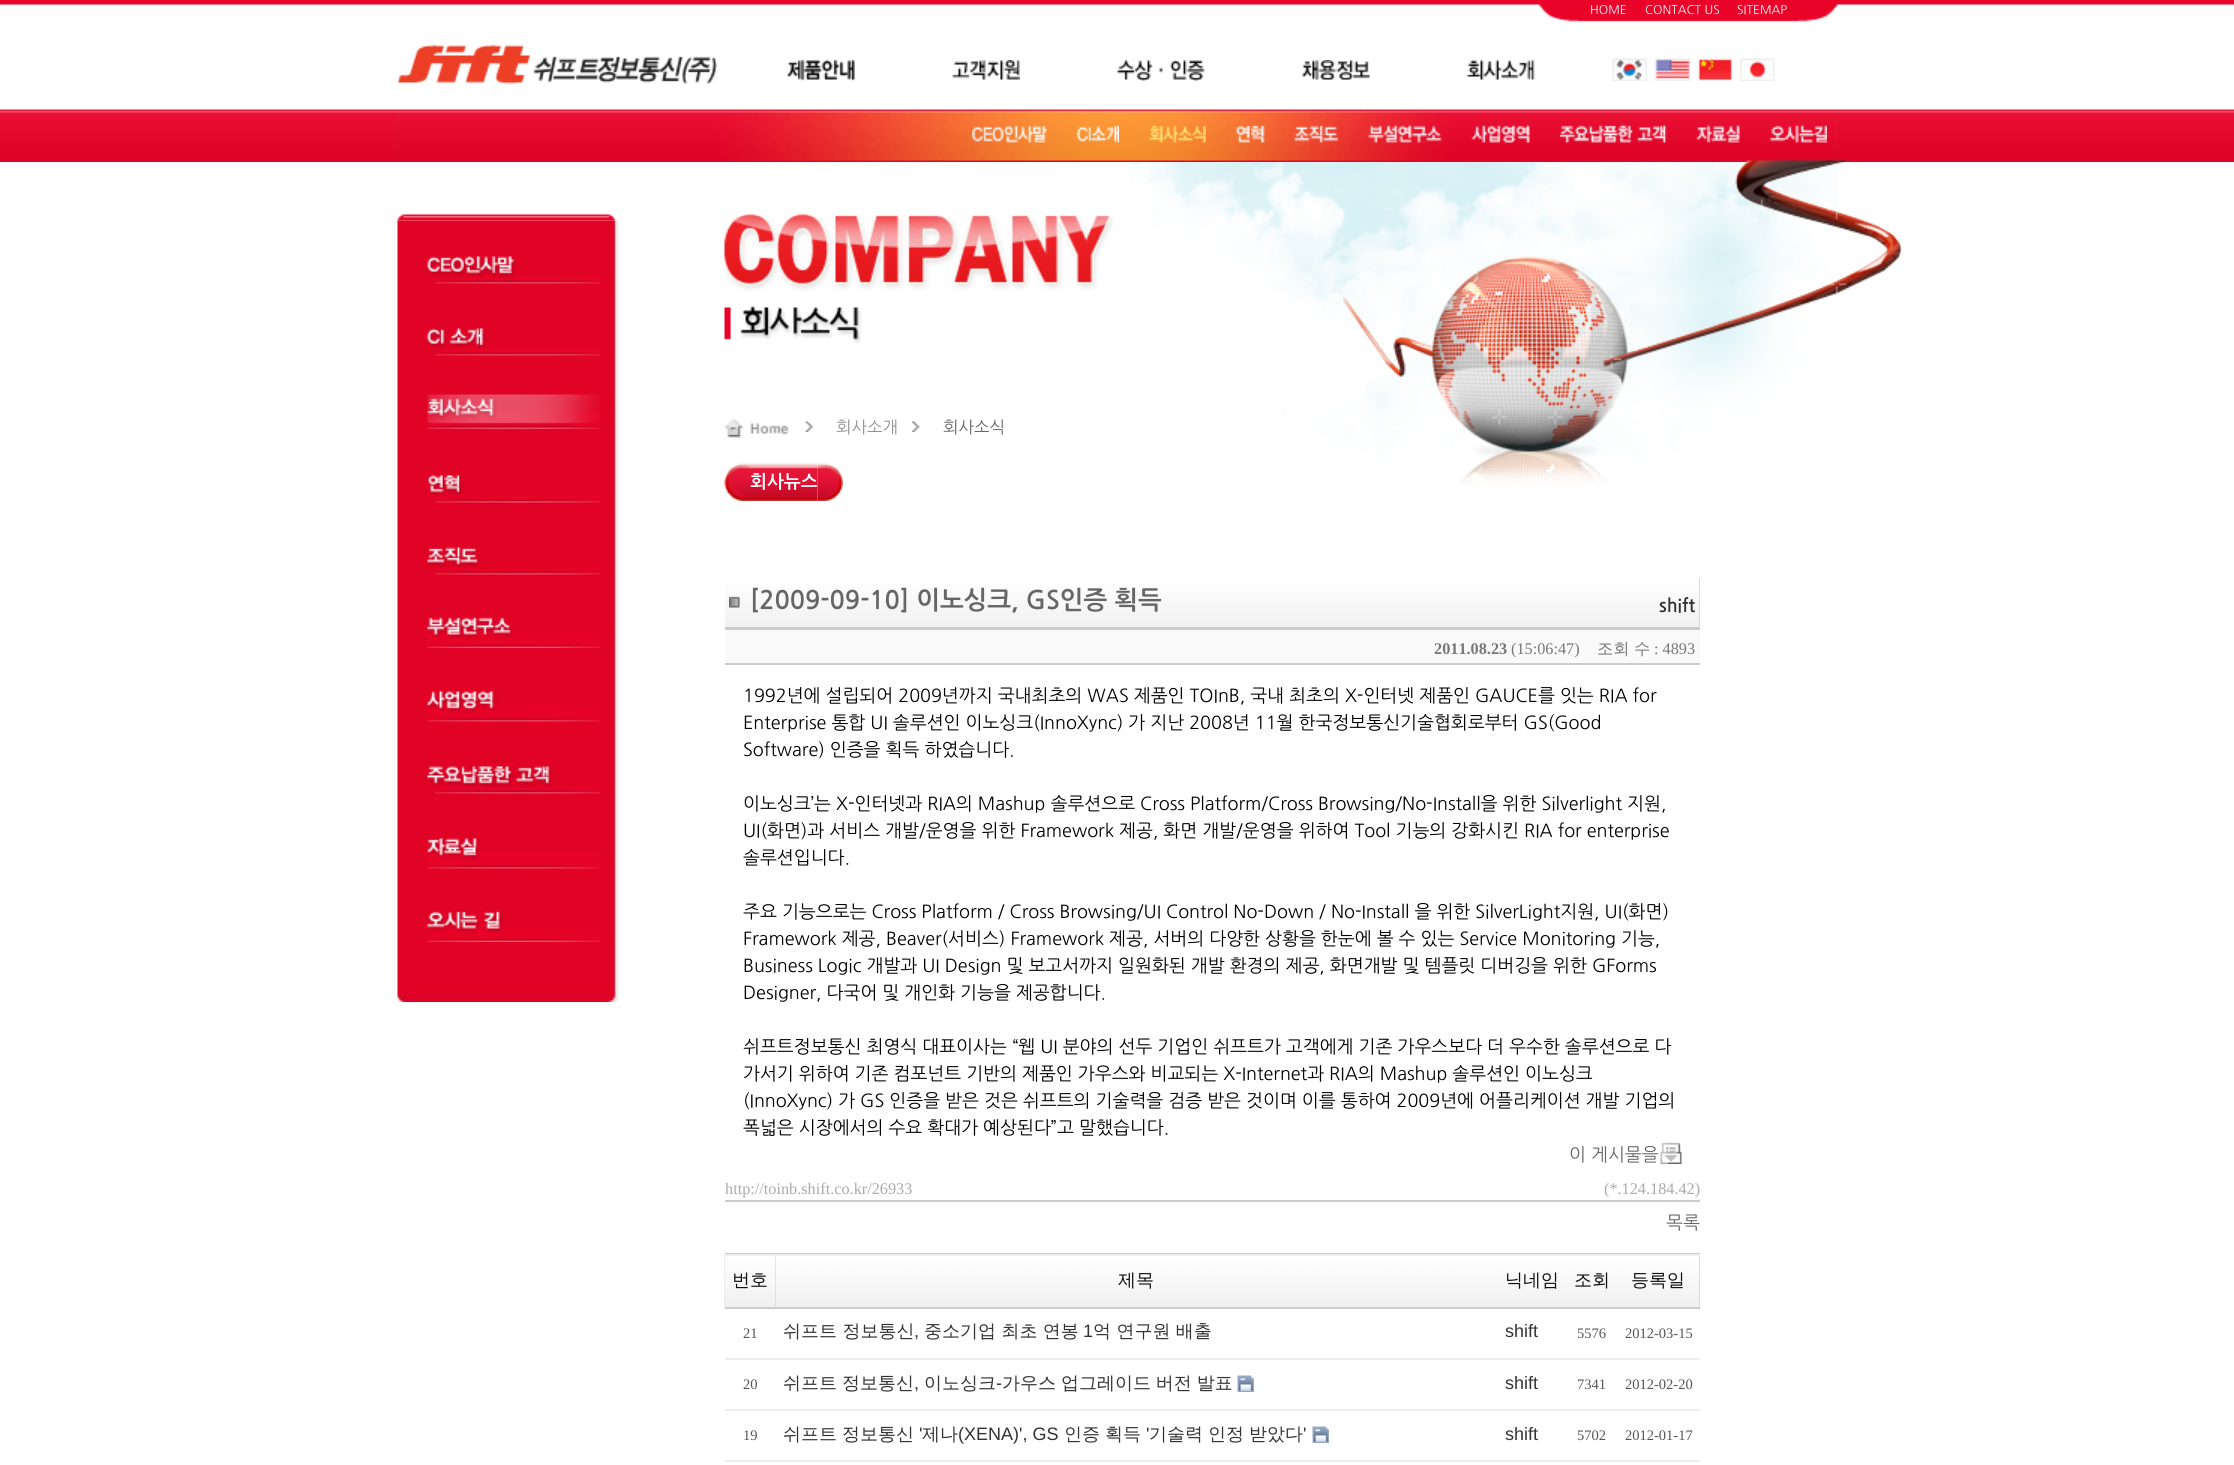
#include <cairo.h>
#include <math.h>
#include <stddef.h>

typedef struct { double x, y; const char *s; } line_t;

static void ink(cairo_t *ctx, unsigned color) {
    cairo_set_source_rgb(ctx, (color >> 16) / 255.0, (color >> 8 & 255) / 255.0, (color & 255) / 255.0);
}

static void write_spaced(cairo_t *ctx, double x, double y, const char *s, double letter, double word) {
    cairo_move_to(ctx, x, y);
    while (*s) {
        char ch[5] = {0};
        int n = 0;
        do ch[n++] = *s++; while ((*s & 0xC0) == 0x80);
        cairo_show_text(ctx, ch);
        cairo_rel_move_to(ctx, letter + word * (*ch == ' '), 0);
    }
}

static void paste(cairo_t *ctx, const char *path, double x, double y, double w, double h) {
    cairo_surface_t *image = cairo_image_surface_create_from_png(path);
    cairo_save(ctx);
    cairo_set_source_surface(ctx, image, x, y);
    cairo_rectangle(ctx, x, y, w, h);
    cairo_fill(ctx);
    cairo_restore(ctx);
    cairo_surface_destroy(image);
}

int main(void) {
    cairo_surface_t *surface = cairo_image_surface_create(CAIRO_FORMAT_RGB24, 2234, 1465);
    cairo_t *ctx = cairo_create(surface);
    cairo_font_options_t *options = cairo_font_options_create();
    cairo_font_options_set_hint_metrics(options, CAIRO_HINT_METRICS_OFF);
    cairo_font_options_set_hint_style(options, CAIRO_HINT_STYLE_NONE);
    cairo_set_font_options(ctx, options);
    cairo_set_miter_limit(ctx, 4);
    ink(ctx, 0xFFFFFF);
    cairo_paint(ctx);
    paste(ctx, "media/1.png", 0, 0, 2234, 162);
    paste(ctx, "media/2.png", 397, 4, 1441, 157);
    cairo_select_font_face(ctx, "NanumGothic", CAIRO_FONT_SLANT_NORMAL, CAIRO_FONT_WEIGHT_NORMAL);
    cairo_set_font_size(ctx, 12);
    ink(ctx, 0xFFFFFF);
    {
        static const line_t items[] = {
            {1590, 14, "HOME"},
            {1645, 14, "CONTACT US"},
            {1737, 14, "SITEMAP"},
        };
        for (size_t i = 0; i < sizeof items / sizeof *items; i++) {
            cairo_move_to(ctx, items[i].x, items[i].y);
            cairo_show_text(ctx, items[i].s);
        }
    }
    paste(ctx, "media/3.png", 397, 45, 320, 39);
    paste(ctx, "media/4.png", 1612, 58, 35, 23);
    paste(ctx, "media/5.png", 1654, 58, 37, 23);
    paste(ctx, "media/6.png", 1698, 58, 35, 23);
    paste(ctx, "media/7.png", 1740, 58, 35, 23);
    paste(ctx, "media/8.png", 787, 60, 68, 21);
    paste(ctx, "media/9.png", 952, 60, 68, 20);
    paste(ctx, "media/10.png", 1467, 60, 68, 20);
    paste(ctx, "media/11.png", 972, 125, 75, 18);
    paste(ctx, "media/12.png", 1077, 125, 42, 18);
    paste(ctx, "media/13.png", 1149, 125, 57, 18);
    paste(ctx, "media/14.png", 1236, 125, 29, 18);
    paste(ctx, "media/15.png", 1294, 125, 44, 18);
    paste(ctx, "media/16.png", 1368, 124, 74, 19);
    paste(ctx, "media/17.png", 1471, 124, 59, 19);
    paste(ctx, "media/18.png", 1560, 124, 107, 19);
    paste(ctx, "media/19.png", 1696, 124, 44, 19);
    paste(ctx, "media/20.png", 1770, 124, 57, 19);
    paste(ctx, "media/21.png", 1117, 60, 88, 21);
    paste(ctx, "media/22.png", 1302, 60, 68, 20);
    paste(ctx, "media/23.png", 1129, 162, 709, 296);
    paste(ctx, "media/24.png", 397, 214, 220, 7);
    paste(ctx, "media/25.png", 397, 220, 222, 776);
    paste(ctx, "media/26.png", 427, 256, 173, 28);
    paste(ctx, "media/27.png", 427, 328, 173, 28);
    paste(ctx, "media/28.png", 427, 394, 173, 35);
    paste(ctx, "media/29.png", 427, 475, 173, 28);
    paste(ctx, "media/30.png", 427, 547, 173, 28);
    paste(ctx, "media/31.png", 427, 617, 173, 31);
    paste(ctx, "media/32.png", 427, 691, 173, 31);
    paste(ctx, "media/33.png", 427, 766, 173, 28);
    paste(ctx, "media/34.png", 427, 838, 173, 31);
    paste(ctx, "media/35.png", 427, 911, 173, 31);
    paste(ctx, "media/36.png", 397, 996, 222, 6);
    paste(ctx, "media/37.png", 1342, 160, 560, 326);
    paste(ctx, "media/38.png", 724, 214, 389, 77);
    paste(ctx, "media/39.png", 724, 306, 138, 38);
    paste(ctx, "media/40.png", 724, 418, 66, 20);
    paste(ctx, "media/41.png", 805, 421, 8, 11);
    cairo_set_font_size(ctx, 16.5);
    ink(ctx, 0x919191);
    cairo_move_to(ctx, 836, 433);
    cairo_show_text(ctx, "회사소개");
    paste(ctx, "media/42.png", 912, 421, 8, 11);
    ink(ctx, 0x666666);
    cairo_move_to(ctx, 943, 433);
    cairo_show_text(ctx, "회사소식");
    paste(ctx, "media/43.png", 724, 463, 26, 38);
    paste(ctx, "media/44.png", 750, 463, 68, 38);
    cairo_select_font_face(ctx, "NanumGothic", CAIRO_FONT_SLANT_NORMAL, CAIRO_FONT_WEIGHT_BOLD);
    cairo_set_font_size(ctx, 18);
    ink(ctx, 0xFFFFFF);
    cairo_move_to(ctx, 750, 488);
    cairo_show_text(ctx, "회사뉴스");
    paste(ctx, "media/45.png", 817, 463, 26, 38);
    ink(ctx, 0xBBBBBB);
    cairo_rectangle(ctx, 725, 578, 975, 49);
    cairo_fill(ctx);
    paste(ctx, "media/46.png", 725, 578, 975, 49);
    ink(ctx, 0xCCCCCC);
    cairo_rectangle(ctx, 725, 627, 975, 3);
    cairo_fill(ctx);
    paste(ctx, "media/47.png", 729, 596, 11, 12);
    cairo_set_font_size(ctx, 25.25);
    ink(ctx, 0x666666);
    cairo_move_to(ctx, 750, 609);
    cairo_show_text(ctx, "[2009-09-10] 이노싱크, GS인증 획득");
    cairo_set_font_size(ctx, 18);
    ink(ctx, 0x333333);
    cairo_move_to(ctx, 1659, 612);
    cairo_show_text(ctx, "shift");
    ink(ctx, 0xFAFAFA);
    cairo_rectangle(ctx, 725, 630, 975, 33);
    cairo_fill(ctx);
    cairo_select_font_face(ctx, "Liberation Serif", CAIRO_FONT_SLANT_NORMAL, CAIRO_FONT_WEIGHT_BOLD);
    cairo_set_font_size(ctx, 16.25);
    ink(ctx, 0x777777);
    cairo_move_to(ctx, 1434, 654);
    cairo_show_text(ctx, "2011.08.23");
    cairo_select_font_face(ctx, "Liberation Serif", CAIRO_FONT_SLANT_NORMAL, CAIRO_FONT_WEIGHT_NORMAL);
    cairo_move_to(ctx, 1511, 654);
    cairo_show_text(ctx, "(15:06:47)");
    cairo_select_font_face(ctx, "WenQuanYi Zen Hei Medium", CAIRO_FONT_SLANT_NORMAL, CAIRO_FONT_WEIGHT_NORMAL);
    cairo_move_to(ctx, 1597, 654);
    cairo_show_text(ctx, "조회");
    cairo_move_to(ctx, 1634, 654);
    cairo_show_text(ctx, "수");
    cairo_select_font_face(ctx, "Liberation Serif", CAIRO_FONT_SLANT_NORMAL, CAIRO_FONT_WEIGHT_NORMAL);
    cairo_move_to(ctx, 1654, 654);
    cairo_show_text(ctx, ": 4893");
    ink(ctx, 0xCCCCCC);
    cairo_rectangle(ctx, 725, 663, 975, 2);
    cairo_fill(ctx);
    cairo_select_font_face(ctx, "NanumGothic", CAIRO_FONT_SLANT_NORMAL, CAIRO_FONT_WEIGHT_NORMAL);
    cairo_set_font_size(ctx, 18);
    ink(ctx, 0x000000);
    {
        static const line_t items[] = {
            {743, 702, "1992년에 설립되어 2009년까지 국내최초의 WAS 제품인 TOInB, 국내 최초의 X-인터넷 제품인 GAUCE를 잇는 RIA for"},
            {743, 729, "Enterprise 통합 UI 솔루션인 이노싱크(InnoXync) 가 지난 2008년 11월 한국정보통신기술협회로부터 GS(Good"},
            {743, 756, "Software) 인증을 획득 하였습니다."},
            {743, 810, "이노싱크’는 X-인터넷과 RIA의 Mashup 솔루션으로 Cross Platform/Cross Browsing/No-Install을 위한 Silverlight 지원,"},
            {743, 837, "UI(화면)과 서비스 개발/운영을 위한 Framework 제공, 화면 개발/운영을 위하여 Tool 기능의 강화시킨 RIA for enterprise"},
            {743, 864, "솔루션입니다."},
            {743, 918, "주요 기능으로는 Cross Platform / Cross Browsing/UI Control No-Down / No-Install 을 위한 SilverLight지원, UI(화면)"},
            {743, 945, "Framework 제공, Beaver(서비스) Framework 제공, 서버의 다양한 상황을 한눈에 볼 수 있는 Service Monitoring 기능,"},
            {743, 972, "Business Logic 개발과 UI Design 및 보고서까지 일원화된 개발 환경의 제공, 화면개발 및 템플릿 디버깅을 위한 GForms"},
            {743, 999, "Designer, 다국어 및 개인화 기능을 제공합니다."},
            {743, 1053, "쉬프트정보통신 최영식 대표이사는 “웹 UI 분야의 선두 기업인 쉬프트가 고객에게 기존 가우스보다 더 우수한 솔루션으로 다"},
            {743, 1080, "가서기 위하여 기존 컴포넌트 기반의 제품인 가우스와 비교되는 X-Internet과 RIA의 Mashup 솔루션인 이노싱크"},
            {743, 1107, "(InnoXync) 가 GS 인증을 받은 것은 쉬프트의 기술력을 검증 받은 것이며 이를 통하여 2009년에 어플리케이션 개발 기업의"},
            {743, 1134, "폭넓은 시장에서의 수요 확대가 예상된다”고 말했습니다."},
        };
        for (size_t i = 0; i < sizeof items / sizeof *items; i++) {
            cairo_move_to(ctx, items[i].x, items[i].y);
            cairo_show_text(ctx, items[i].s);
        }
    }
    paste(ctx, "media/48.png", 1660, 1142, 22, 22);
    ink(ctx, 0x666666);
    cairo_move_to(ctx, 1569, 1161);
    cairo_show_text(ctx, "이 게시물을");
    cairo_select_font_face(ctx, "Liberation Serif", CAIRO_FONT_SLANT_NORMAL, CAIRO_FONT_WEIGHT_NORMAL);
    cairo_set_font_size(ctx, 16.25);
    ink(ctx, 0xAAAAAA);
    cairo_move_to(ctx, 725, 1194);
    cairo_show_text(ctx, "http://toinb.shift.co.kr/26933");
    cairo_move_to(ctx, 1604, 1194);
    cairo_show_text(ctx, "(*.124.184.42)");
    ink(ctx, 0xCCCCCC);
    cairo_rectangle(ctx, 725, 1200, 975, 2);
    cairo_fill(ctx);
    cairo_select_font_face(ctx, "NanumGothic", CAIRO_FONT_SLANT_NORMAL, CAIRO_FONT_WEIGHT_NORMAL);
    cairo_set_font_size(ctx, 18);
    ink(ctx, 0x666666);
    cairo_move_to(ctx, 1666, 1229);
    cairo_show_text(ctx, "목록");
    ink(ctx, 0xCCCCCC);
    cairo_rectangle(ctx, 725, 1253, 975, 1);
    cairo_fill(ctx);
    ink(ctx, 0xBBBBBB);
    cairo_rectangle(ctx, 775, 1256, 925, 51);
    cairo_fill(ctx);
    paste(ctx, "media/49.png", 724, 1254, 52, 54);
    ink(ctx, 0xEEEEEE);
    cairo_rectangle(ctx, 725, 1254, 51, 2);
    cairo_fill(ctx);
    ink(ctx, 0xCCCCCC);
    cairo_rectangle(ctx, 725, 1307, 51, 2);
    cairo_fill(ctx);
    cairo_select_font_face(ctx, "WenQuanYi Zen Hei Medium", CAIRO_FONT_SLANT_NORMAL, CAIRO_FONT_WEIGHT_NORMAL);
    ink(ctx, 0x111111);
    cairo_move_to(ctx, 732, 1286);
    cairo_show_text(ctx, "번호");
    paste(ctx, "media/50.png", 775, 1254, 722, 54);
    ink(ctx, 0xEEEEEE);
    cairo_rectangle(ctx, 776, 1254, 924, 2);
    cairo_fill(ctx);
    ink(ctx, 0xCCCCCC);
    cairo_rectangle(ctx, 776, 1307, 924, 2);
    cairo_fill(ctx);
    ink(ctx, 0x111111);
    cairo_move_to(ctx, 1118, 1286);
    cairo_show_text(ctx, "제목");
    paste(ctx, "media/51.png", 1497, 1256, 69, 51);
    cairo_move_to(ctx, 1505, 1286);
    cairo_show_text(ctx, "닉네임");
    paste(ctx, "media/52.png", 1566, 1256, 51, 51);
    cairo_move_to(ctx, 1574, 1286);
    cairo_show_text(ctx, "조회");
    paste(ctx, "media/53.png", 1617, 1256, 83, 51);
    cairo_move_to(ctx, 1631, 1286);
    cairo_show_text(ctx, "등록일");
    ink(ctx, 0xEEEEEE);
    cairo_rectangle(ctx, 725, 1358, 975, 2);
    cairo_fill(ctx);
    cairo_select_font_face(ctx, "Liberation Serif", CAIRO_FONT_SLANT_NORMAL, CAIRO_FONT_WEIGHT_NORMAL);
    cairo_set_font_size(ctx, 14.5);
    ink(ctx, 0x555555);
    cairo_move_to(ctx, 743, 1338);
    cairo_show_text(ctx, "21");
    cairo_select_font_face(ctx, "WenQuanYi Zen Hei Medium", CAIRO_FONT_SLANT_NORMAL, CAIRO_FONT_WEIGHT_NORMAL);
    cairo_set_font_size(ctx, 18);
    ink(ctx, 0x333333);
    cairo_move_to(ctx, 783, 1337);
    cairo_show_text(ctx, "쉬프트 정보통신");
    cairo_move_to(ctx, 924, 1337);
    cairo_show_text(ctx, "중소기업 최초 연봉");
    cairo_select_font_face(ctx, "Liberation Sans", CAIRO_FONT_SLANT_NORMAL, CAIRO_FONT_WEIGHT_NORMAL);
    cairo_move_to(ctx, 1083, 1337);
    cairo_show_text(ctx, "1");
    cairo_select_font_face(ctx, "WenQuanYi Zen Hei Medium", CAIRO_FONT_SLANT_NORMAL, CAIRO_FONT_WEIGHT_NORMAL);
    cairo_move_to(ctx, 1093, 1337);
    cairo_show_text(ctx, "억 연구원 배출");
    cairo_select_font_face(ctx, "Liberation Sans", CAIRO_FONT_SLANT_NORMAL, CAIRO_FONT_WEIGHT_NORMAL);
    cairo_move_to(ctx, 914, 1337);
    cairo_show_text(ctx, ",");
    cairo_move_to(ctx, 1505, 1337);
    cairo_show_text(ctx, "shift");
    cairo_select_font_face(ctx, "Liberation Serif", CAIRO_FONT_SLANT_NORMAL, CAIRO_FONT_WEIGHT_NORMAL);
    cairo_set_font_size(ctx, 14.5);
    ink(ctx, 0x555555);
    cairo_move_to(ctx, 1577, 1338);
    cairo_show_text(ctx, "5576");
    cairo_move_to(ctx, 1625, 1338);
    cairo_show_text(ctx, "2012-03-15");
    ink(ctx, 0xEEEEEE);
    cairo_rectangle(ctx, 725, 1409, 975, 2);
    cairo_fill(ctx);
    ink(ctx, 0x555555);
    cairo_move_to(ctx, 743, 1389);
    cairo_show_text(ctx, "20");
    cairo_select_font_face(ctx, "WenQuanYi Zen Hei Medium", CAIRO_FONT_SLANT_NORMAL, CAIRO_FONT_WEIGHT_NORMAL);
    cairo_set_font_size(ctx, 18);
    ink(ctx, 0x333333);
    write_spaced(ctx, 783, 1389, "쉬프트 정보통신", 0, -0.5);
    cairo_move_to(ctx, 924, 1389);
    cairo_show_text(ctx, "이노싱크");
    cairo_select_font_face(ctx, "Liberation Sans", CAIRO_FONT_SLANT_NORMAL, CAIRO_FONT_WEIGHT_NORMAL);
    cairo_move_to(ctx, 996, 1389);
    cairo_show_text(ctx, "-");
    cairo_select_font_face(ctx, "WenQuanYi Zen Hei Medium", CAIRO_FONT_SLANT_NORMAL, CAIRO_FONT_WEIGHT_NORMAL);
    write_spaced(ctx, 1002, 1389, "가우스 업그레이드 버전 발표", 0, -0.5);
    paste(ctx, "media/54.png", 1237, 1375, 17, 17);
    cairo_select_font_face(ctx, "Liberation Sans", CAIRO_FONT_SLANT_NORMAL, CAIRO_FONT_WEIGHT_NORMAL);
    cairo_move_to(ctx, 914, 1389);
    cairo_show_text(ctx, ",");
    cairo_move_to(ctx, 1505, 1389);
    cairo_show_text(ctx, "shift");
    cairo_select_font_face(ctx, "Liberation Serif", CAIRO_FONT_SLANT_NORMAL, CAIRO_FONT_WEIGHT_NORMAL);
    cairo_set_font_size(ctx, 14.5);
    ink(ctx, 0x555555);
    cairo_move_to(ctx, 1577, 1389);
    cairo_show_text(ctx, "7341");
    cairo_move_to(ctx, 1625, 1389);
    cairo_show_text(ctx, "2012-02-20");
    ink(ctx, 0xEEEEEE);
    cairo_rectangle(ctx, 725, 1460, 975, 2);
    cairo_fill(ctx);
    ink(ctx, 0x555555);
    cairo_move_to(ctx, 743, 1440);
    cairo_show_text(ctx, "19");
    cairo_select_font_face(ctx, "WenQuanYi Zen Hei Medium", CAIRO_FONT_SLANT_NORMAL, CAIRO_FONT_WEIGHT_NORMAL);
    cairo_set_font_size(ctx, 18);
    ink(ctx, 0x333333);
    cairo_move_to(ctx, 783, 1440);
    cairo_show_text(ctx, "쉬프트");
    cairo_move_to(ctx, 842, 1440);
    cairo_show_text(ctx, "정보통신");
    cairo_select_font_face(ctx, "Liberation Sans", CAIRO_FONT_SLANT_NORMAL, CAIRO_FONT_WEIGHT_NORMAL);
    cairo_move_to(ctx, 919, 1440);
    cairo_show_text(ctx, "'");
    cairo_select_font_face(ctx, "WenQuanYi Zen Hei Medium", CAIRO_FONT_SLANT_NORMAL, CAIRO_FONT_WEIGHT_NORMAL);
    cairo_move_to(ctx, 922, 1440);
    cairo_show_text(ctx, "제나");
    cairo_select_font_face(ctx, "Liberation Sans", CAIRO_FONT_SLANT_NORMAL, CAIRO_FONT_WEIGHT_NORMAL);
    cairo_move_to(ctx, 958, 1440);
    cairo_show_text(ctx, "(XENA)', GS");
    cairo_select_font_face(ctx, "WenQuanYi Zen Hei Medium", CAIRO_FONT_SLANT_NORMAL, CAIRO_FONT_WEIGHT_NORMAL);
    cairo_move_to(ctx, 1064, 1440);
    cairo_show_text(ctx, "인증");
    cairo_move_to(ctx, 1105, 1440);
    cairo_show_text(ctx, "획득");
    cairo_select_font_face(ctx, "Liberation Sans", CAIRO_FONT_SLANT_NORMAL, CAIRO_FONT_WEIGHT_NORMAL);
    cairo_move_to(ctx, 1146, 1440);
    cairo_show_text(ctx, "'");
    cairo_select_font_face(ctx, "WenQuanYi Zen Hei Medium", CAIRO_FONT_SLANT_NORMAL, CAIRO_FONT_WEIGHT_NORMAL);
    {
        static const line_t items[] = {
            {1149, 1440, "기술력"},
            {1208, 1440, "인정"},
            {1249, 1440, "받았다"},
        };
        for (size_t i = 0; i < sizeof items / sizeof *items; i++) {
            cairo_move_to(ctx, items[i].x, items[i].y);
            cairo_show_text(ctx, items[i].s);
        }
    }
    cairo_select_font_face(ctx, "Liberation Sans", CAIRO_FONT_SLANT_NORMAL, CAIRO_FONT_WEIGHT_NORMAL);
    cairo_move_to(ctx, 1303, 1440);
    cairo_show_text(ctx, "'");
    paste(ctx, "media/55.png", 1312, 1426, 17, 17);
    cairo_move_to(ctx, 1505, 1440);
    cairo_show_text(ctx, "shift");
    cairo_select_font_face(ctx, "Liberation Serif", CAIRO_FONT_SLANT_NORMAL, CAIRO_FONT_WEIGHT_NORMAL);
    cairo_set_font_size(ctx, 14.5);
    ink(ctx, 0x555555);
    cairo_move_to(ctx, 1577, 1440);
    cairo_show_text(ctx, "5702");
    cairo_move_to(ctx, 1625, 1440);
    cairo_show_text(ctx, "2012-01-17");
    cairo_surface_write_to_png(surface, "image.png");
    cairo_font_options_destroy(options);
    cairo_destroy(ctx);
    cairo_surface_destroy(surface);
    return 0;
}
